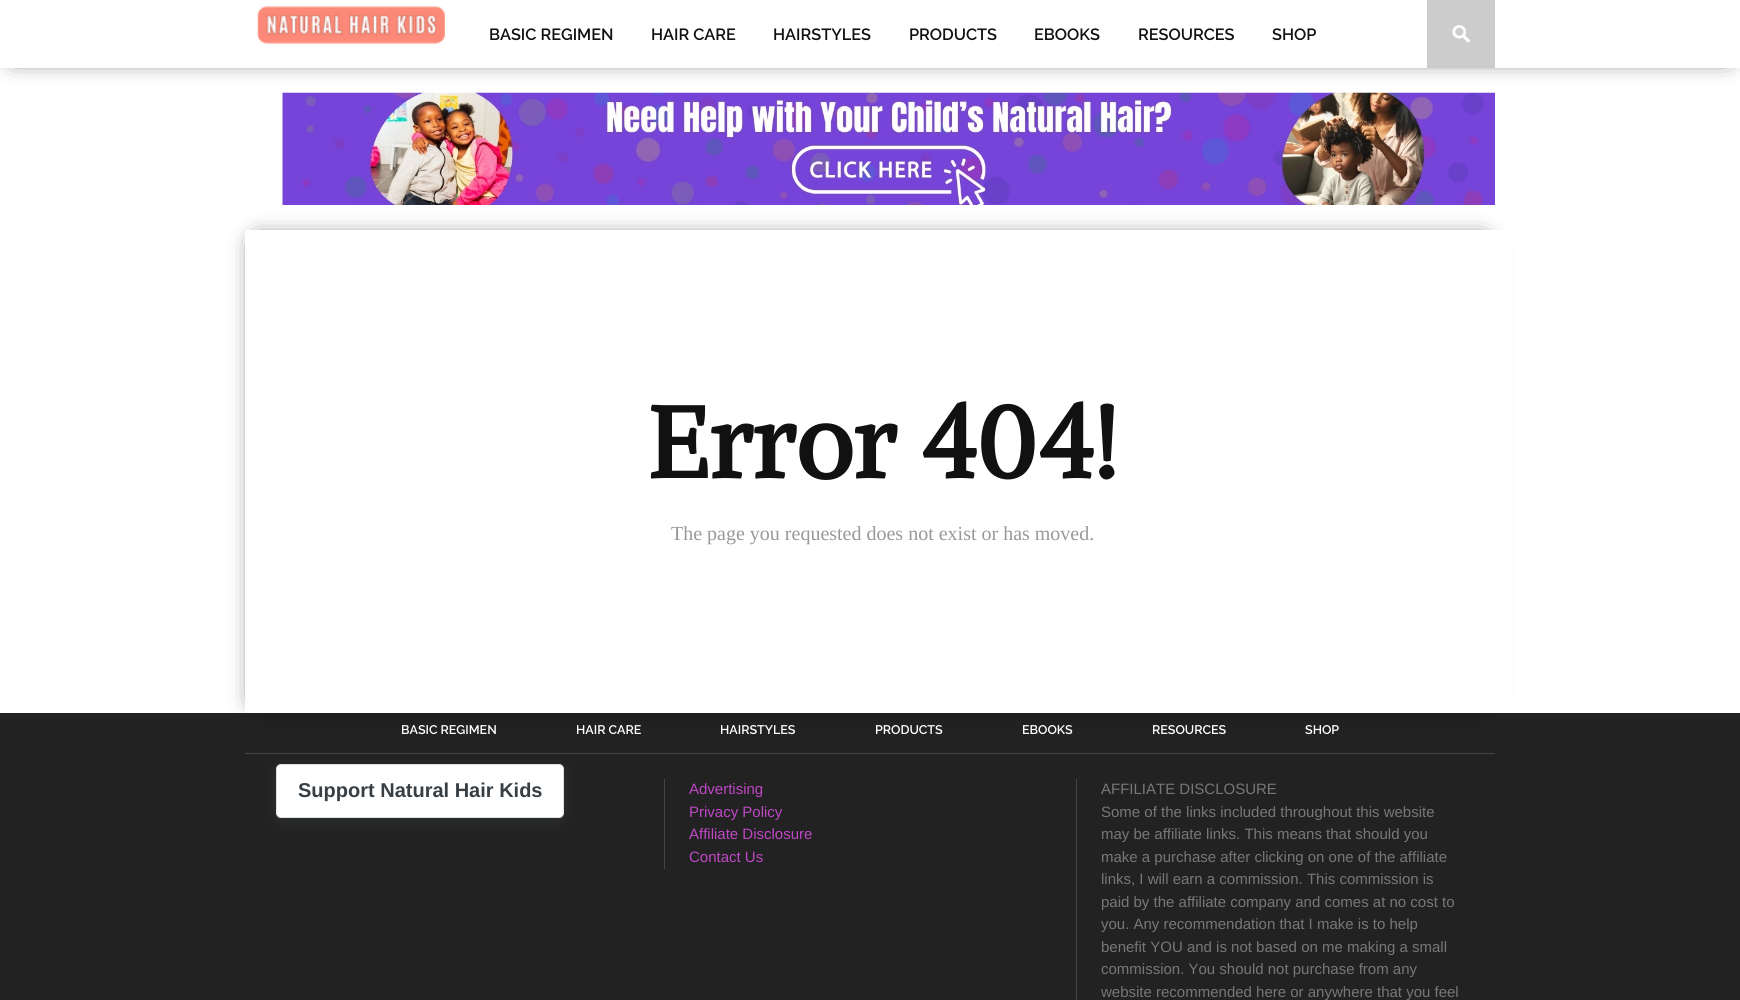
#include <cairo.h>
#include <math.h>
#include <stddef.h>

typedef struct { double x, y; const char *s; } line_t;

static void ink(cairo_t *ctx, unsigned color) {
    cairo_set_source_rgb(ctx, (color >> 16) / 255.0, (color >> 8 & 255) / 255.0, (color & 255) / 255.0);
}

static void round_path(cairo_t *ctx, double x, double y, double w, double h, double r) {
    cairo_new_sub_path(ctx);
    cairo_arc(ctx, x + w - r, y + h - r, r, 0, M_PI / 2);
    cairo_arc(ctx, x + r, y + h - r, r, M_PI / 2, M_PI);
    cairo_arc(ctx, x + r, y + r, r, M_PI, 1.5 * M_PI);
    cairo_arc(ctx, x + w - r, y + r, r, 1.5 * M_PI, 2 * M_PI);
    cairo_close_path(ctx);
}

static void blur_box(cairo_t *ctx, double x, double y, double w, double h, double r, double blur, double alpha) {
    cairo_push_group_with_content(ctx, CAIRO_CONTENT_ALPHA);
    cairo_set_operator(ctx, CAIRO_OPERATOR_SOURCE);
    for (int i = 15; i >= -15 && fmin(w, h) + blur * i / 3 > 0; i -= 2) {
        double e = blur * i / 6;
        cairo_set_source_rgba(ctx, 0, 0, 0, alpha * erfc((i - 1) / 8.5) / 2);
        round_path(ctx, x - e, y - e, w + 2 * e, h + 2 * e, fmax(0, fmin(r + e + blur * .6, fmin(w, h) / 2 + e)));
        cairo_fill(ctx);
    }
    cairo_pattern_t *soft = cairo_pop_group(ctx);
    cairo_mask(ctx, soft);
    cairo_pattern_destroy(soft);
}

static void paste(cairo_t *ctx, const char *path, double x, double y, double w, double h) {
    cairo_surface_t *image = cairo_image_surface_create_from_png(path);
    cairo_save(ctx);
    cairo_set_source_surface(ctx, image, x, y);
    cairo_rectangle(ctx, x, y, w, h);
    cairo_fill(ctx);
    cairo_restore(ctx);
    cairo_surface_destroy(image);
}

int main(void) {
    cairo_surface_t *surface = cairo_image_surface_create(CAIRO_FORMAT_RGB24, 1740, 1000);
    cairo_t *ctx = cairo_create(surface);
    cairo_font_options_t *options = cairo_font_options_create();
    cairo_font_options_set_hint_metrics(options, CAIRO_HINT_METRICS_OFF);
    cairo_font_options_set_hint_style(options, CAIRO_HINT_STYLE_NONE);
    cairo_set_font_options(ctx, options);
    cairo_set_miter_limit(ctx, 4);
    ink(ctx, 0xFFFFFF);
    cairo_paint(ctx);
    paste(ctx, "media/3.png", 282, 92, 1213, 113);
    ink(ctx, 0x000000);
    blur_box(ctx, 13, 13, 1715, 42, 0, 12.5, 1);
    ink(ctx, 0xFFFFFF);
    cairo_rectangle(ctx, 0, 0, 1740, 68);
    cairo_fill(ctx);
    paste(ctx, "media/1.png", 257, 6, 188, 38);
    cairo_select_font_face(ctx, "Raleway SemiBold", CAIRO_FONT_SLANT_NORMAL, CAIRO_FONT_WEIGHT_NORMAL);
    cairo_set_font_size(ctx, 16.25);
    ink(ctx, 0x111111);
    {
        static const line_t items[] = {
            {489, 40, "BASIC REGIMEN"},
            {651, 40, "HAIR CARE"},
            {773, 40, "HAIRSTYLES"},
            {909, 40, "PRODUCTS"},
            {1034, 40, "EBOOKS"},
            {1138, 40, "RESOURCES"},
            {1272, 40, "SHOP"},
        };
        for (size_t i = 0; i < sizeof items / sizeof *items; i++) {
            cairo_move_to(ctx, items[i].x, items[i].y);
            cairo_show_text(ctx, items[i].s);
        }
    }
    ink(ctx, 0xCCCCCC);
    cairo_rectangle(ctx, 1427, 0, 68, 68);
    cairo_fill(ctx);
    paste(ctx, "media/2.png", 1452, 25, 18, 18);
    ink(ctx, 0x222222);
    cairo_rectangle(ctx, 0, 713, 1740, 287);
    cairo_fill(ctx);
    ink(ctx, 0x000000);
    blur_box(ctx, 258, 243, 1225, 457, 0, 12.5, 1);
    ink(ctx, 0xFFFFFF);
    cairo_rectangle(ctx, 245, 230, 1267, 483);
    cairo_fill(ctx);
    cairo_select_font_face(ctx, "Alike", CAIRO_FONT_SLANT_NORMAL, CAIRO_FONT_WEIGHT_BOLD);
    cairo_set_font_size(ctx, 100);
    ink(ctx, 0x111111);
    cairo_move_to(ctx, 647, 478);
    cairo_show_text(ctx, "Error 404!");
    cairo_select_font_face(ctx, "Liberation Serif", CAIRO_FONT_SLANT_NORMAL, CAIRO_FONT_WEIGHT_NORMAL);
    cairo_set_font_size(ctx, 20);
    ink(ctx, 0x999999);
    cairo_move_to(ctx, 671, 540);
    cairo_show_text(ctx, "The page you requested does not exist or has moved.");
    ink(ctx, 0x444444);
    cairo_rectangle(ctx, 245, 753, 1250, 1);
    cairo_fill(ctx);
    cairo_select_font_face(ctx, "Raleway SemiBold", CAIRO_FONT_SLANT_NORMAL, CAIRO_FONT_WEIGHT_NORMAL);
    cairo_set_font_size(ctx, 12.5);
    ink(ctx, 0xFFFFFF);
    {
        static const line_t items[] = {
            {401, 734, "BASIC REGIMEN"},
            {576, 734, "HAIR CARE"},
            {720, 734, "HAIRSTYLES"},
            {875, 734, "PRODUCTS"},
            {1022, 734, "EBOOKS"},
            {1152, 734, "RESOURCES"},
            {1305, 734, "SHOP"},
        };
        for (size_t i = 0; i < sizeof items / sizeof *items; i++) {
            cairo_move_to(ctx, items[i].x, items[i].y);
            cairo_show_text(ctx, items[i].s);
        }
    }
    ink(ctx, 0xB0B8BE);
    blur_box(ctx, 276, 768, 288, 53, 5, 7.5, 0.1);
    ink(ctx, 0xFFFFFF);
    round_path(ctx, 276.5, 764.5, 287, 53, 4.5);
    cairo_fill_preserve(ctx);
    ink(ctx, 0xDCE1E5);
    cairo_set_line_width(ctx, 1);
    cairo_stroke(ctx);
    cairo_select_font_face(ctx, "Liberation Sans", CAIRO_FONT_SLANT_NORMAL, CAIRO_FONT_WEIGHT_BOLD);
    cairo_set_font_size(ctx, 20);
    ink(ctx, 0x373F45);
    cairo_move_to(ctx, 298, 797);
    cairo_show_text(ctx, "Support Natural Hair Kids");
    ink(ctx, 0x444444);
    cairo_rectangle(ctx, 664, 779, 1, 90);
    cairo_fill(ctx);
    cairo_select_font_face(ctx, "Liberation Sans", CAIRO_FONT_SLANT_NORMAL, CAIRO_FONT_WEIGHT_NORMAL);
    cairo_set_font_size(ctx, 15);
    ink(ctx, 0xBE47C4);
    {
        static const line_t items[] = {
            {689, 794, "Advertising"},
            {689, 817, "Privacy Policy"},
            {689, 839, "Affiliate Disclosure"},
            {689, 862, "Contact Us"},
        };
        for (size_t i = 0; i < sizeof items / sizeof *items; i++) {
            cairo_move_to(ctx, items[i].x, items[i].y);
            cairo_show_text(ctx, items[i].s);
        }
    }
    ink(ctx, 0x444444);
    cairo_rectangle(ctx, 1076, 779, 1, 221);
    cairo_fill(ctx);
    ink(ctx, 0x777777);
    {
        static const line_t items[] = {
            {1101, 794, "AFFILIATE DISCLOSURE"},
            {1101, 817, "Some of the links included throughout this website"},
            {1101, 839, "may be affiliate links. This means that should you"},
            {1101, 862, "make a purchase after clicking on one of the affiliate"},
            {1101, 884, "links, I will earn a commission. This commission is"},
            {1101, 907, "paid by the affiliate company and comes at no cost to"},
            {1101, 929, "you. Any recommendation that I make is to help"},
            {1101, 952, "benefit YOU and is not based on me making a small"},
            {1101, 974, "commission. You should not purchase from any"},
            {1101, 997, "website recommended here or anywhere that you feel"},
        };
        for (size_t i = 0; i < sizeof items / sizeof *items; i++) {
            cairo_move_to(ctx, items[i].x, items[i].y);
            cairo_show_text(ctx, items[i].s);
        }
    }
    cairo_surface_write_to_png(surface, "image.png");
    cairo_font_options_destroy(options);
    cairo_destroy(ctx);
    cairo_surface_destroy(surface);
    return 0;
}
